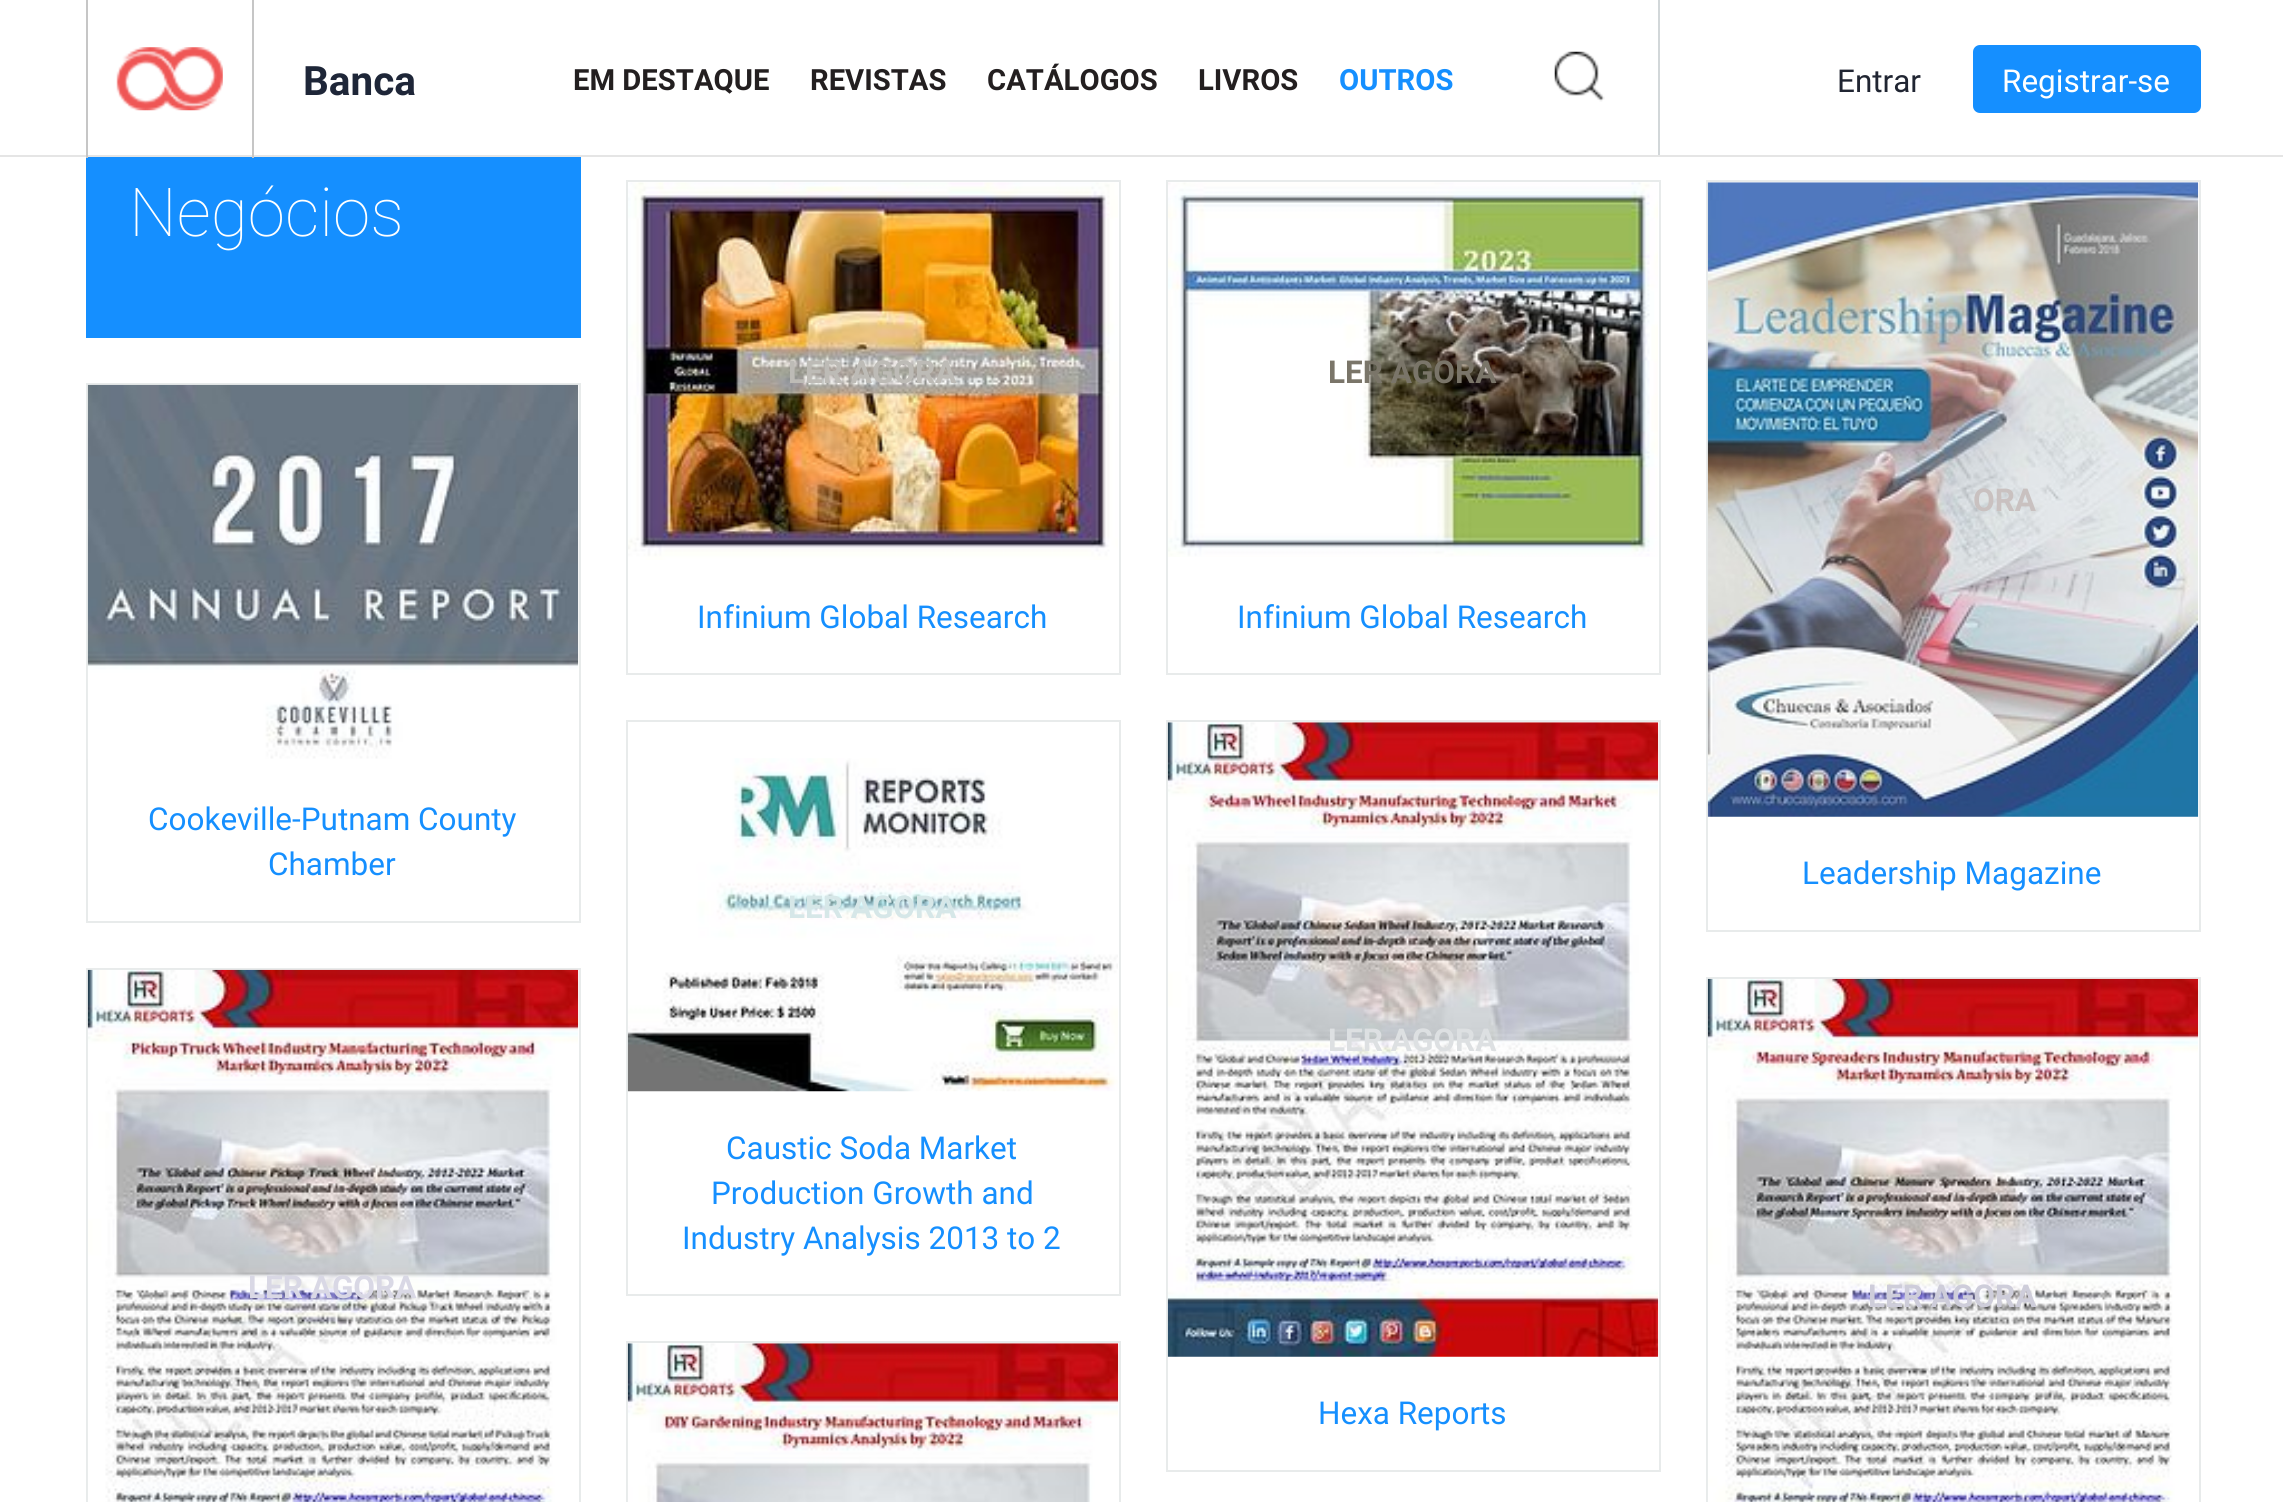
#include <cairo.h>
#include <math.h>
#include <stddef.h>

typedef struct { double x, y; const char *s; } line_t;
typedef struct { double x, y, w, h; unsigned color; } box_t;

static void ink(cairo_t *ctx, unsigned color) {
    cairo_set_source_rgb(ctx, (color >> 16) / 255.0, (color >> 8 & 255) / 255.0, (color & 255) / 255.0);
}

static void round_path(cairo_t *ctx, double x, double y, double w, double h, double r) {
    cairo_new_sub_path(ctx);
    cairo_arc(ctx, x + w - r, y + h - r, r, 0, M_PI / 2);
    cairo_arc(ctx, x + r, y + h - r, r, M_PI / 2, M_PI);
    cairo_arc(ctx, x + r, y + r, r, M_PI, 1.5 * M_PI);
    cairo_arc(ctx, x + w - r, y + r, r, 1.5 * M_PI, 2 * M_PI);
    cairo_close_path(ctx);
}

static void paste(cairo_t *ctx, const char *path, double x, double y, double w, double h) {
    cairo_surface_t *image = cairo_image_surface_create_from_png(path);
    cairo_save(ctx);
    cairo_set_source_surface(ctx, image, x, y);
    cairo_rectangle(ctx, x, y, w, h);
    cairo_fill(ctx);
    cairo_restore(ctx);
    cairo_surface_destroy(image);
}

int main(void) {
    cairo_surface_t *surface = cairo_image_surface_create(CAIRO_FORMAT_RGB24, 2283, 1502);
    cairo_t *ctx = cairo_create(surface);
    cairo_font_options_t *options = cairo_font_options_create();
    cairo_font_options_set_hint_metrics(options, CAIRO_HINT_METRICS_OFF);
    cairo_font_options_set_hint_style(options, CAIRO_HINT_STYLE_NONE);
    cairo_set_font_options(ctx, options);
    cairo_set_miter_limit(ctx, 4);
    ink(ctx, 0xFFFFFF);
    cairo_paint(ctx);
    {
        static const box_t items[] = {
            {0, 155, 2283, 2, 0xE5E5E5},
            {86, 157, 495, 181, 0x158FFF},
            {252, 0, 2, 158, 0xC6C6C6},
            {86, 0, 2, 158, 0xC6C6C6},
        };
        for (size_t i = 0; i < sizeof items / sizeof *items; i++) {
            ink(ctx, items[i].color);
            cairo_rectangle(ctx, items[i].x, items[i].y, items[i].w, items[i].h);
            cairo_fill(ctx);
        }
    }
    paste(ctx, "media/1.png", 116, 47, 107, 64);
    cairo_select_font_face(ctx, "Roboto", CAIRO_FONT_SLANT_NORMAL, CAIRO_FONT_WEIGHT_BOLD);
    cairo_set_font_size(ctx, 40.5);
    ink(ctx, 0x1E2638);
    cairo_move_to(ctx, 303, 95);
    cairo_show_text(ctx, "Banca");
    cairo_set_font_size(ctx, 29.25);
    ink(ctx, 0x231F20);
    {
        static const line_t items[] = {
            {573, 90, "EM DESTAQUE"},
            {810, 90, "REVISTAS"},
            {987, 90, "CATÁLOGOS"},
            {1198, 90, "LIVROS"},
        };
        for (size_t i = 0; i < sizeof items / sizeof *items; i++) {
            cairo_move_to(ctx, items[i].x, items[i].y);
            cairo_show_text(ctx, items[i].s);
        }
    }
    ink(ctx, 0x158FFF);
    cairo_move_to(ctx, 1339, 90);
    cairo_show_text(ctx, "OUTROS");
    ink(ctx, 0xD2D7D9);
    cairo_rectangle(ctx, 1658, 0, 2, 155);
    cairo_fill(ctx);
    paste(ctx, "media/2.png", 1554, 51, 51, 51);
    cairo_select_font_face(ctx, "Roboto", CAIRO_FONT_SLANT_NORMAL, CAIRO_FONT_WEIGHT_NORMAL);
    cairo_set_font_size(ctx, 31.5);
    ink(ctx, 0x202532);
    cairo_move_to(ctx, 1837, 92);
    cairo_show_text(ctx, "Entrar");
    ink(ctx, 0x158FFF);
    round_path(ctx, 1973, 45, 228, 68, 7);
    cairo_fill(ctx);
    ink(ctx, 0xFFFFFF);
    cairo_move_to(ctx, 2002, 92);
    cairo_show_text(ctx, "Registrar-se");
    cairo_select_font_face(ctx, "Roboto Thin", CAIRO_FONT_SLANT_NORMAL, CAIRO_FONT_WEIGHT_NORMAL);
    cairo_set_font_size(ctx, 67.5);
    cairo_move_to(ctx, 129, 236);
    cairo_show_text(ctx, "Negócios");
    cairo_rectangle(ctx, 87, 384, 493, 538);
    ink(ctx, 0xE8EBEB);
    cairo_stroke(ctx);
    paste(ctx, "media/3.png", 87, 384, 492, 375);
    cairo_select_font_face(ctx, "Roboto", CAIRO_FONT_SLANT_NORMAL, CAIRO_FONT_WEIGHT_NORMAL);
    cairo_set_font_size(ctx, 31.5);
    ink(ctx, 0x158FFF);
    cairo_move_to(ctx, 148, 830);
    cairo_show_text(ctx, "Cookeville-Putnam County");
    cairo_move_to(ctx, 268, 875);
    cairo_show_text(ctx, "Chamber");
    cairo_rectangle(ctx, 627, 181, 493, 493);
    ink(ctx, 0xE8EBEB);
    cairo_stroke(ctx);
    paste(ctx, "media/4.png", 628, 182, 490, 378);
    cairo_select_font_face(ctx, "Roboto", CAIRO_FONT_SLANT_NORMAL, CAIRO_FONT_WEIGHT_BOLD);
    ink(ctx, 0xBDBBB6);
    cairo_move_to(ctx, 788, 383);
    cairo_show_text(ctx, "LER AGORA");
    cairo_select_font_face(ctx, "Roboto", CAIRO_FONT_SLANT_NORMAL, CAIRO_FONT_WEIGHT_NORMAL);
    ink(ctx, 0x158FFF);
    cairo_move_to(ctx, 697, 628);
    cairo_show_text(ctx, "Infinium Global Research");
    cairo_rectangle(ctx, 1167, 181, 493, 493);
    ink(ctx, 0xE8EBEB);
    cairo_stroke(ctx);
    paste(ctx, "media/5.png", 1168, 182, 490, 375);
    cairo_select_font_face(ctx, "Roboto", CAIRO_FONT_SLANT_NORMAL, CAIRO_FONT_WEIGHT_BOLD);
    ink(ctx, 0x7A7569);
    cairo_move_to(ctx, 1328, 383);
    cairo_show_text(ctx, "LER AGORA");
    cairo_select_font_face(ctx, "Roboto", CAIRO_FONT_SLANT_NORMAL, CAIRO_FONT_WEIGHT_NORMAL);
    ink(ctx, 0x158FFF);
    cairo_move_to(ctx, 1237, 628);
    cairo_show_text(ctx, "Infinium Global Research");
    cairo_rectangle(ctx, 1707, 181, 493, 750);
    ink(ctx, 0xE8EBEB);
    cairo_stroke(ctx);
    paste(ctx, "media/6.png", 1707, 182, 492, 635);
    cairo_select_font_face(ctx, "Roboto", CAIRO_FONT_SLANT_NORMAL, CAIRO_FONT_WEIGHT_BOLD);
    ink(ctx, 0xC9C1C0);
    cairo_move_to(ctx, 1973, 511);
    cairo_show_text(ctx, "ORA");
    cairo_select_font_face(ctx, "Roboto", CAIRO_FONT_SLANT_NORMAL, CAIRO_FONT_WEIGHT_NORMAL);
    ink(ctx, 0x158FFF);
    cairo_move_to(ctx, 1802, 884);
    cairo_show_text(ctx, "Leadership Magazine");
    cairo_rectangle(ctx, 87, 969, 493, 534);
    ink(ctx, 0xE8EBEB);
    cairo_stroke(ctx);
    paste(ctx, "media/7.png", 87, 969, 492, 533);
    cairo_select_font_face(ctx, "Roboto", CAIRO_FONT_SLANT_NORMAL, CAIRO_FONT_WEIGHT_BOLD);
    ink(ctx, 0xD9D8E5);
    cairo_move_to(ctx, 248, 1298);
    cairo_show_text(ctx, "LER AGORA");
    cairo_rectangle(ctx, 627, 721, 493, 574);
    ink(ctx, 0xE8EBEB);
    cairo_stroke(ctx);
    paste(ctx, "media/8.png", 627, 758, 491, 334);
    ink(ctx, 0xD6E7E8);
    cairo_move_to(ctx, 788, 918);
    cairo_show_text(ctx, "LER AGORA");
    cairo_select_font_face(ctx, "Roboto", CAIRO_FONT_SLANT_NORMAL, CAIRO_FONT_WEIGHT_NORMAL);
    ink(ctx, 0x158FFF);
    {
        static const line_t items[] = {
            {726, 1159, "Caustic Soda Market"},
            {711, 1204, "Production Growth and"},
            {682, 1249, "Industry Analysis 2013 to 2"},
        };
        for (size_t i = 0; i < sizeof items / sizeof *items; i++) {
            cairo_move_to(ctx, items[i].x, items[i].y);
            cairo_show_text(ctx, items[i].s);
        }
    }
    cairo_rectangle(ctx, 1167, 721, 493, 750);
    ink(ctx, 0xE8EBEB);
    cairo_stroke(ctx);
    paste(ctx, "media/9.png", 1167, 722, 492, 635);
    cairo_select_font_face(ctx, "Roboto", CAIRO_FONT_SLANT_NORMAL, CAIRO_FONT_WEIGHT_BOLD);
    ink(ctx, 0xDDE0E2);
    cairo_move_to(ctx, 1328, 1051);
    cairo_show_text(ctx, "LER AGORA");
    cairo_select_font_face(ctx, "Roboto", CAIRO_FONT_SLANT_NORMAL, CAIRO_FONT_WEIGHT_NORMAL);
    ink(ctx, 0x158FFF);
    cairo_move_to(ctx, 1318, 1424);
    cairo_show_text(ctx, "Hexa Reports");
    cairo_rectangle(ctx, 1707, 978, 493, 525);
    ink(ctx, 0xE8EBEB);
    cairo_stroke(ctx);
    paste(ctx, "media/10.png", 1707, 978, 492, 524);
    cairo_select_font_face(ctx, "Roboto", CAIRO_FONT_SLANT_NORMAL, CAIRO_FONT_WEIGHT_BOLD);
    ink(ctx, 0xCECDDA);
    cairo_move_to(ctx, 1868, 1307);
    cairo_show_text(ctx, "LER AGORA");
    cairo_rectangle(ctx, 627, 1342, 493, 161);
    ink(ctx, 0xE8EBEB);
    cairo_stroke(ctx);
    paste(ctx, "media/11.png", 627, 1343, 492, 159);
    cairo_surface_write_to_png(surface, "image.png");
    cairo_font_options_destroy(options);
    cairo_destroy(ctx);
    cairo_surface_destroy(surface);
    return 0;
}
